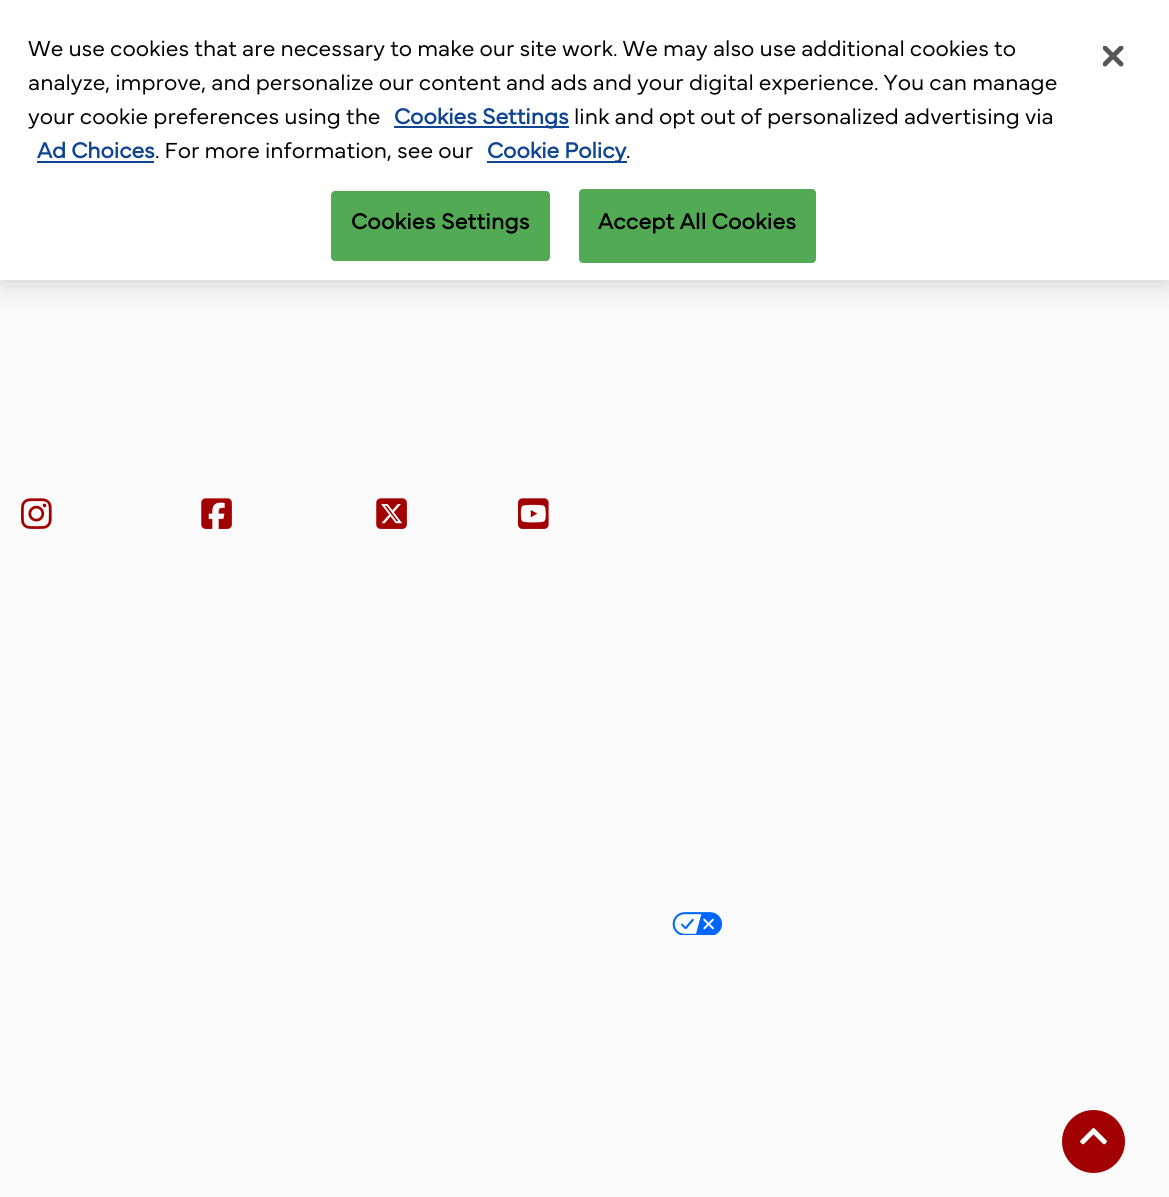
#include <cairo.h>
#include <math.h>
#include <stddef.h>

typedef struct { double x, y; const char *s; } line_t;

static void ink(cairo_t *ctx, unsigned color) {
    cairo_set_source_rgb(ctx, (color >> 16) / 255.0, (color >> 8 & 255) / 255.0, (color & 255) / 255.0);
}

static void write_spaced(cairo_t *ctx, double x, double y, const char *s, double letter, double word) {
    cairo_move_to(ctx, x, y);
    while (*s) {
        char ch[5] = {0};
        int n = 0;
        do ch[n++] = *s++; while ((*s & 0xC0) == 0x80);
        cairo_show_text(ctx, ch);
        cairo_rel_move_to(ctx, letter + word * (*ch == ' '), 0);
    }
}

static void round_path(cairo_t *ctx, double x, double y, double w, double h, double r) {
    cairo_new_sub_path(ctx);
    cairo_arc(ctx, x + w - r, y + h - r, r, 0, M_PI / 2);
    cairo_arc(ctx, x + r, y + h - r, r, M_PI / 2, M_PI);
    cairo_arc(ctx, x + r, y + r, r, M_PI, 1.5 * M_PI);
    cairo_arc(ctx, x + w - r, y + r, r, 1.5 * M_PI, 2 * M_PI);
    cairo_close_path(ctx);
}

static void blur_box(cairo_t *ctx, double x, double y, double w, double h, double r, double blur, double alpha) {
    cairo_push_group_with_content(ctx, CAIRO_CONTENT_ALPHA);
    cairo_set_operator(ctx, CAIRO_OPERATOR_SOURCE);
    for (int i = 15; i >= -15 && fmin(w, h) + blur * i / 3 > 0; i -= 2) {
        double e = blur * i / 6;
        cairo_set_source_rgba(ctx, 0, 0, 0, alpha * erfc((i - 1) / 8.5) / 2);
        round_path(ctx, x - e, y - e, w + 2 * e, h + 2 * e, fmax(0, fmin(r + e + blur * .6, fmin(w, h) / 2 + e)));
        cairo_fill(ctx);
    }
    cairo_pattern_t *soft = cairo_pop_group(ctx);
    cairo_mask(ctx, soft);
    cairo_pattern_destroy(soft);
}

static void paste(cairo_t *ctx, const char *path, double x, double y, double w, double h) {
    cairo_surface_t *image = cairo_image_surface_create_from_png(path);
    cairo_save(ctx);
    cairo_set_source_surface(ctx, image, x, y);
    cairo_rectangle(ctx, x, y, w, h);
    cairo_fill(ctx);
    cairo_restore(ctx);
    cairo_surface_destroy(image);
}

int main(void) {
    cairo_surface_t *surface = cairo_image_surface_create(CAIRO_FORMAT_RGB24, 1169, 1197);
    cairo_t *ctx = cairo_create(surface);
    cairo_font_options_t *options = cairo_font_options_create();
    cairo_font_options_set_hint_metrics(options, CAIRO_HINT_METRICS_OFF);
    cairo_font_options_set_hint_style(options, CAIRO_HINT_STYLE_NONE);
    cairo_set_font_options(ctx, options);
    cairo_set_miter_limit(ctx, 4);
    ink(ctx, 0xFAFAFA);
    cairo_paint(ctx);
    ink(ctx, 0x000000);
    blur_box(ctx, 0, 0, 1169, 280, 0, 16, 0.2);
    ink(ctx, 0xFFFFFF);
    cairo_rectangle(ctx, 0, 0, 1169, 280);
    cairo_fill(ctx);
    cairo_select_font_face(ctx, "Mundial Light", CAIRO_FONT_SLANT_NORMAL, CAIRO_FONT_WEIGHT_NORMAL);
    cairo_set_font_size(ctx, 22.75);
    ink(ctx, 0x000000);
    {
        static const line_t items[] = {
            {28, 56, "We use cookies that are necessary to make our site work. We may also use additional cookies to"},
            {28, 90, "analyze, improve, and personalize our content and ads and your digital experience. You can manage"},
            {28, 124, "your cookie preferences using the"},
        };
        for (size_t i = 0; i < sizeof items / sizeof *items; i++) {
            cairo_move_to(ctx, items[i].x, items[i].y);
            cairo_show_text(ctx, items[i].s);
        }
    }
    ink(ctx, 0x104593);
    cairo_rectangle(ctx, 394, 126, 175, 2);
    cairo_fill(ctx);
    cairo_select_font_face(ctx, "Mundial", CAIRO_FONT_SLANT_NORMAL, CAIRO_FONT_WEIGHT_BOLD);
    cairo_move_to(ctx, 394, 124);
    cairo_show_text(ctx, "Cookies Settings");
    cairo_select_font_face(ctx, "Mundial Light", CAIRO_FONT_SLANT_NORMAL, CAIRO_FONT_WEIGHT_NORMAL);
    ink(ctx, 0x000000);
    cairo_move_to(ctx, 574, 124);
    cairo_show_text(ctx, "link and opt out of personalized advertising via");
    cairo_select_font_face(ctx, "Mundial", CAIRO_FONT_SLANT_NORMAL, CAIRO_FONT_WEIGHT_BOLD);
    ink(ctx, 0x104593);
    cairo_move_to(ctx, 37, 158);
    cairo_show_text(ctx, "Ad Choices");
    cairo_rectangle(ctx, 37, 161, 117, 2);
    cairo_fill(ctx);
    cairo_select_font_face(ctx, "Mundial Light", CAIRO_FONT_SLANT_NORMAL, CAIRO_FONT_WEIGHT_NORMAL);
    ink(ctx, 0x000000);
    cairo_move_to(ctx, 155, 158);
    cairo_show_text(ctx, ". For more information, see our");
    ink(ctx, 0x104593);
    cairo_rectangle(ctx, 487, 161, 140, 2);
    cairo_fill(ctx);
    cairo_select_font_face(ctx, "Mundial", CAIRO_FONT_SLANT_NORMAL, CAIRO_FONT_WEIGHT_BOLD);
    cairo_move_to(ctx, 487, 158);
    cairo_show_text(ctx, "Cookie Policy");
    cairo_select_font_face(ctx, "Mundial Light", CAIRO_FONT_SLANT_NORMAL, CAIRO_FONT_WEIGHT_NORMAL);
    ink(ctx, 0x000000);
    cairo_move_to(ctx, 626, 158);
    cairo_show_text(ctx, ".");
    ink(ctx, 0x52AA55);
    round_path(ctx, 331, 191, 219, 70, 4);
    cairo_fill(ctx);
    cairo_select_font_face(ctx, "Mundial", CAIRO_FONT_SLANT_NORMAL, CAIRO_FONT_WEIGHT_BOLD);
    ink(ctx, 0x000000);
    write_spaced(ctx, 351, 229, "Cookies Settings", 0.25, 0);
    ink(ctx, 0x52AA55);
    round_path(ctx, 580, 190, 235, 72, 3);
    cairo_fill_preserve(ctx);
    cairo_stroke(ctx);
    ink(ctx, 0x000000);
    write_spaced(ctx, 598, 229, "Accept All Cookies", 0.25, 0);
    paste(ctx, "media/1.png", 1103, 46, 21, 21);
    paste(ctx, "media/2.png", 21, 498, 31, 31);
    paste(ctx, "media/3.png", 201, 498, 31, 31);
    paste(ctx, "media/4.png", 376, 498, 31, 31);
    paste(ctx, "media/5.png", 518, 498, 31, 31);
    paste(ctx, "media/6.png", 672, 912, 51, 23);
    ink(ctx, 0xA10100);
    cairo_arc(ctx, 1093.5, 1141.5, 31.5, 0, 2 * M_PI);
    cairo_fill(ctx);
    paste(ctx, "media/7.png", 1080, 1128, 27, 17);
    cairo_surface_write_to_png(surface, "image.png");
    cairo_font_options_destroy(options);
    cairo_destroy(ctx);
    cairo_surface_destroy(surface);
    return 0;
}
